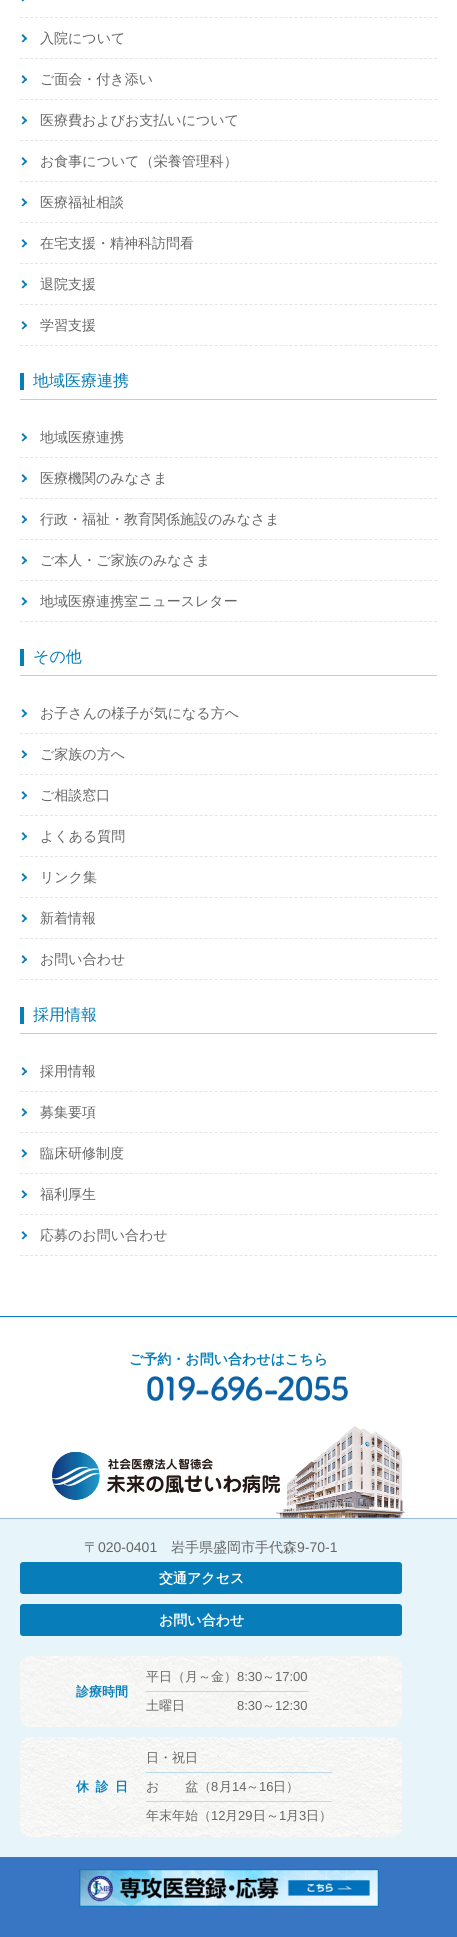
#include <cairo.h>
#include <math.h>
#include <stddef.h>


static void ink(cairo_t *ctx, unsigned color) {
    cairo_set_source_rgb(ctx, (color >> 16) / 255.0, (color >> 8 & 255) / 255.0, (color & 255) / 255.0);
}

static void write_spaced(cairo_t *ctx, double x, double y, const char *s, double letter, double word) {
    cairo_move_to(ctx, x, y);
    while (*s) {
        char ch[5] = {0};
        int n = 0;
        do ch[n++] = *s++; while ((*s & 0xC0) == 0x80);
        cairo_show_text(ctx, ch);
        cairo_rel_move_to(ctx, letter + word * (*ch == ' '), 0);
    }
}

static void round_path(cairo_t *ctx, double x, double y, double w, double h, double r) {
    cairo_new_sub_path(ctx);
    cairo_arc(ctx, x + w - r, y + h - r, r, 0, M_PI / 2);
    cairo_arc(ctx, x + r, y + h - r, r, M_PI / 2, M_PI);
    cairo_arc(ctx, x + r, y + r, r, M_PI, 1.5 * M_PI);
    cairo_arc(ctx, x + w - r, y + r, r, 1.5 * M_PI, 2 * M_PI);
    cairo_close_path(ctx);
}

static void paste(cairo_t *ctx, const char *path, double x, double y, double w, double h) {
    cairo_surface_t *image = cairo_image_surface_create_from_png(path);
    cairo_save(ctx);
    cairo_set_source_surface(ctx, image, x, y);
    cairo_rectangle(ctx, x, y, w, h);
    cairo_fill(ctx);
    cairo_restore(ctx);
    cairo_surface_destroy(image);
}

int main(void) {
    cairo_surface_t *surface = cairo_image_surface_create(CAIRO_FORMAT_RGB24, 457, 1937);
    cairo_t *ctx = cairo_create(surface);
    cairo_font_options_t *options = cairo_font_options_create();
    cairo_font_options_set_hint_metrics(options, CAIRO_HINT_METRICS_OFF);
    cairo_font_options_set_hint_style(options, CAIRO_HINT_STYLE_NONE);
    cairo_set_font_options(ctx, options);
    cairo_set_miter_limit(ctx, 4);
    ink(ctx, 0xFFFFFF);
    cairo_paint(ctx);
    ink(ctx, 0x077DB9);
    cairo_rectangle(ctx, 0, 1316, 457, 1);
    cairo_fill(ctx);
    cairo_new_path(ctx);
    cairo_move_to(ctx, 20, 17.5);
    cairo_line_to(ctx, 437, 17.5);
    ink(ctx, 0xE7E3E3);
    cairo_set_line_width(ctx, 1);
    cairo_set_dash(ctx, (double[]){3, 1.99}, 2, 0);
    cairo_stroke(ctx);
    ink(ctx, 0x077DB9);
    cairo_new_path(ctx);
    cairo_move_to(ctx, 26, -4);
    cairo_line_to(ctx, 27, -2.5);
    cairo_line_to(ctx, 23, 1.5);
    cairo_line_to(ctx, 21.5, 0.5);
    cairo_close_path(ctx);
    cairo_fill(ctx);
    cairo_new_path(ctx);
    cairo_move_to(ctx, 20, 58.5);
    cairo_line_to(ctx, 437, 58.5);
    ink(ctx, 0xE7E3E3);
    cairo_stroke(ctx);
    ink(ctx, 0x077DB9);
    cairo_new_path(ctx);
    cairo_move_to(ctx, 23, 34);
    cairo_line_to(ctx, 27, 38.5);
    cairo_line_to(ctx, 26, 40);
    cairo_line_to(ctx, 21.5, 35.5);
    cairo_close_path(ctx);
    cairo_fill(ctx);
    cairo_new_path(ctx);
    cairo_move_to(ctx, 26, 37);
    cairo_line_to(ctx, 27, 38.5);
    cairo_line_to(ctx, 23, 42.5);
    cairo_line_to(ctx, 21.5, 41.5);
    cairo_close_path(ctx);
    cairo_fill(ctx);
    cairo_select_font_face(ctx, "WenQuanYi Zen Hei Medium", CAIRO_FONT_SLANT_NORMAL, CAIRO_FONT_WEIGHT_NORMAL);
    cairo_set_font_size(ctx, 14);
    ink(ctx, 0x666666);
    cairo_move_to(ctx, 40, 43);
    cairo_show_text(ctx, "入院について");
    cairo_new_path(ctx);
    cairo_move_to(ctx, 20, 99.5);
    cairo_line_to(ctx, 437, 99.5);
    ink(ctx, 0xE7E3E3);
    cairo_stroke(ctx);
    ink(ctx, 0x077DB9);
    cairo_new_path(ctx);
    cairo_move_to(ctx, 23, 75);
    cairo_line_to(ctx, 27, 79.5);
    cairo_line_to(ctx, 26, 81);
    cairo_line_to(ctx, 21.5, 76.5);
    cairo_close_path(ctx);
    cairo_fill(ctx);
    cairo_new_path(ctx);
    cairo_move_to(ctx, 26, 78);
    cairo_line_to(ctx, 27, 79.5);
    cairo_line_to(ctx, 23, 83.5);
    cairo_line_to(ctx, 21.5, 82.5);
    cairo_close_path(ctx);
    cairo_fill(ctx);
    ink(ctx, 0x666666);
    cairo_move_to(ctx, 40, 84);
    cairo_show_text(ctx, "ご面会・付き添い");
    cairo_new_path(ctx);
    cairo_move_to(ctx, 20, 140.5);
    cairo_line_to(ctx, 437, 140.5);
    ink(ctx, 0xE7E3E3);
    cairo_stroke(ctx);
    ink(ctx, 0x077DB9);
    cairo_new_path(ctx);
    cairo_move_to(ctx, 23, 116);
    cairo_line_to(ctx, 27, 120.5);
    cairo_line_to(ctx, 26, 122);
    cairo_line_to(ctx, 21.5, 117.5);
    cairo_close_path(ctx);
    cairo_fill(ctx);
    cairo_new_path(ctx);
    cairo_move_to(ctx, 26, 119);
    cairo_line_to(ctx, 27, 120.5);
    cairo_line_to(ctx, 23, 124.5);
    cairo_line_to(ctx, 21.5, 123.5);
    cairo_close_path(ctx);
    cairo_fill(ctx);
    ink(ctx, 0x666666);
    cairo_move_to(ctx, 40, 125);
    cairo_show_text(ctx, "医療費およびお支払いについて");
    cairo_new_path(ctx);
    cairo_move_to(ctx, 20, 181.5);
    cairo_line_to(ctx, 437, 181.5);
    ink(ctx, 0xE7E3E3);
    cairo_stroke(ctx);
    ink(ctx, 0x077DB9);
    cairo_new_path(ctx);
    cairo_move_to(ctx, 23, 157);
    cairo_line_to(ctx, 27, 161.5);
    cairo_line_to(ctx, 26, 163);
    cairo_line_to(ctx, 21.5, 158.5);
    cairo_close_path(ctx);
    cairo_fill(ctx);
    cairo_new_path(ctx);
    cairo_move_to(ctx, 26, 160);
    cairo_line_to(ctx, 27, 161.5);
    cairo_line_to(ctx, 23, 165.5);
    cairo_line_to(ctx, 21.5, 164.5);
    cairo_close_path(ctx);
    cairo_fill(ctx);
    ink(ctx, 0x666666);
    cairo_move_to(ctx, 40, 166);
    cairo_show_text(ctx, "お食事について（栄養管理科）");
    cairo_new_path(ctx);
    cairo_move_to(ctx, 20, 222.5);
    cairo_line_to(ctx, 437, 222.5);
    ink(ctx, 0xE7E3E3);
    cairo_stroke(ctx);
    ink(ctx, 0x077DB9);
    cairo_new_path(ctx);
    cairo_move_to(ctx, 23, 198);
    cairo_line_to(ctx, 27, 202.5);
    cairo_line_to(ctx, 26, 204);
    cairo_line_to(ctx, 21.5, 199.5);
    cairo_close_path(ctx);
    cairo_fill(ctx);
    cairo_new_path(ctx);
    cairo_move_to(ctx, 26, 201);
    cairo_line_to(ctx, 27, 202.5);
    cairo_line_to(ctx, 23, 206.5);
    cairo_line_to(ctx, 21.5, 205.5);
    cairo_close_path(ctx);
    cairo_fill(ctx);
    ink(ctx, 0x666666);
    cairo_move_to(ctx, 40, 207);
    cairo_show_text(ctx, "医療福祉相談");
    cairo_new_path(ctx);
    cairo_move_to(ctx, 20, 263.5);
    cairo_line_to(ctx, 437, 263.5);
    ink(ctx, 0xE7E3E3);
    cairo_stroke(ctx);
    ink(ctx, 0x077DB9);
    cairo_new_path(ctx);
    cairo_move_to(ctx, 23, 239);
    cairo_line_to(ctx, 27, 243.5);
    cairo_line_to(ctx, 26, 245);
    cairo_line_to(ctx, 21.5, 240.5);
    cairo_close_path(ctx);
    cairo_fill(ctx);
    cairo_new_path(ctx);
    cairo_move_to(ctx, 26, 242);
    cairo_line_to(ctx, 27, 243.5);
    cairo_line_to(ctx, 23, 247.5);
    cairo_line_to(ctx, 21.5, 246.5);
    cairo_close_path(ctx);
    cairo_fill(ctx);
    ink(ctx, 0x666666);
    cairo_move_to(ctx, 40, 248);
    cairo_show_text(ctx, "在宅支援・精神科訪問看");
    cairo_new_path(ctx);
    cairo_move_to(ctx, 20, 304.5);
    cairo_line_to(ctx, 437, 304.5);
    ink(ctx, 0xE7E3E3);
    cairo_stroke(ctx);
    ink(ctx, 0x077DB9);
    cairo_new_path(ctx);
    cairo_move_to(ctx, 23, 280);
    cairo_line_to(ctx, 27, 284.5);
    cairo_line_to(ctx, 26, 286);
    cairo_line_to(ctx, 21.5, 281.5);
    cairo_close_path(ctx);
    cairo_fill(ctx);
    cairo_new_path(ctx);
    cairo_move_to(ctx, 26, 283);
    cairo_line_to(ctx, 27, 284.5);
    cairo_line_to(ctx, 23, 288.5);
    cairo_line_to(ctx, 21.5, 287.5);
    cairo_close_path(ctx);
    cairo_fill(ctx);
    ink(ctx, 0x666666);
    cairo_move_to(ctx, 40, 289);
    cairo_show_text(ctx, "退院支援");
    cairo_new_path(ctx);
    cairo_move_to(ctx, 20, 345.5);
    cairo_line_to(ctx, 437, 345.5);
    ink(ctx, 0xE7E3E3);
    cairo_stroke(ctx);
    ink(ctx, 0x077DB9);
    cairo_new_path(ctx);
    cairo_move_to(ctx, 23, 321);
    cairo_line_to(ctx, 27, 325.5);
    cairo_line_to(ctx, 26, 327);
    cairo_line_to(ctx, 21.5, 322.5);
    cairo_close_path(ctx);
    cairo_fill(ctx);
    cairo_new_path(ctx);
    cairo_move_to(ctx, 26, 324);
    cairo_line_to(ctx, 27, 325.5);
    cairo_line_to(ctx, 23, 329.5);
    cairo_line_to(ctx, 21.5, 328.5);
    cairo_close_path(ctx);
    cairo_fill(ctx);
    ink(ctx, 0x666666);
    cairo_move_to(ctx, 40, 330);
    cairo_show_text(ctx, "学習支援");
    ink(ctx, 0xCCCCCC);
    cairo_rectangle(ctx, 20, 399, 417, 1);
    cairo_fill(ctx);
    ink(ctx, 0x077DB9);
    cairo_rectangle(ctx, 20, 373, 4, 17);
    cairo_fill(ctx);
    cairo_set_font_size(ctx, 16);
    cairo_move_to(ctx, 33, 386);
    cairo_show_text(ctx, "地域医療連携");
    cairo_new_path(ctx);
    cairo_move_to(ctx, 20, 457.5);
    cairo_line_to(ctx, 437, 457.5);
    ink(ctx, 0xE7E3E3);
    cairo_stroke(ctx);
    ink(ctx, 0x077DB9);
    cairo_new_path(ctx);
    cairo_move_to(ctx, 23, 433);
    cairo_line_to(ctx, 27, 437.5);
    cairo_line_to(ctx, 26, 439);
    cairo_line_to(ctx, 21.5, 434.5);
    cairo_close_path(ctx);
    cairo_fill(ctx);
    cairo_new_path(ctx);
    cairo_move_to(ctx, 26, 436);
    cairo_line_to(ctx, 27, 437.5);
    cairo_line_to(ctx, 23, 441.5);
    cairo_line_to(ctx, 21.5, 440.5);
    cairo_close_path(ctx);
    cairo_fill(ctx);
    cairo_set_font_size(ctx, 14);
    ink(ctx, 0x666666);
    cairo_move_to(ctx, 40, 442);
    cairo_show_text(ctx, "地域医療連携");
    cairo_new_path(ctx);
    cairo_move_to(ctx, 20, 498.5);
    cairo_line_to(ctx, 437, 498.5);
    ink(ctx, 0xE7E3E3);
    cairo_stroke(ctx);
    ink(ctx, 0x077DB9);
    cairo_new_path(ctx);
    cairo_move_to(ctx, 23, 474);
    cairo_line_to(ctx, 27, 478.5);
    cairo_line_to(ctx, 26, 480);
    cairo_line_to(ctx, 21.5, 475.5);
    cairo_close_path(ctx);
    cairo_fill(ctx);
    cairo_new_path(ctx);
    cairo_move_to(ctx, 26, 477);
    cairo_line_to(ctx, 27, 478.5);
    cairo_line_to(ctx, 23, 482.5);
    cairo_line_to(ctx, 21.5, 481.5);
    cairo_close_path(ctx);
    cairo_fill(ctx);
    ink(ctx, 0x666666);
    cairo_move_to(ctx, 40, 483);
    cairo_show_text(ctx, "医療機関のみなさま");
    cairo_new_path(ctx);
    cairo_move_to(ctx, 20, 539.5);
    cairo_line_to(ctx, 437, 539.5);
    ink(ctx, 0xE7E3E3);
    cairo_stroke(ctx);
    ink(ctx, 0x077DB9);
    cairo_new_path(ctx);
    cairo_move_to(ctx, 23, 515);
    cairo_line_to(ctx, 27, 519.5);
    cairo_line_to(ctx, 26, 521);
    cairo_line_to(ctx, 21.5, 516.5);
    cairo_close_path(ctx);
    cairo_fill(ctx);
    cairo_new_path(ctx);
    cairo_move_to(ctx, 26, 518);
    cairo_line_to(ctx, 27, 519.5);
    cairo_line_to(ctx, 23, 523.5);
    cairo_line_to(ctx, 21.5, 522.5);
    cairo_close_path(ctx);
    cairo_fill(ctx);
    ink(ctx, 0x666666);
    cairo_move_to(ctx, 40, 524);
    cairo_show_text(ctx, "行政・福祉・教育関係施設のみなさま");
    cairo_new_path(ctx);
    cairo_move_to(ctx, 20, 580.5);
    cairo_line_to(ctx, 437, 580.5);
    ink(ctx, 0xE7E3E3);
    cairo_stroke(ctx);
    ink(ctx, 0x077DB9);
    cairo_new_path(ctx);
    cairo_move_to(ctx, 23, 556);
    cairo_line_to(ctx, 27, 560.5);
    cairo_line_to(ctx, 26, 562);
    cairo_line_to(ctx, 21.5, 557.5);
    cairo_close_path(ctx);
    cairo_fill(ctx);
    cairo_new_path(ctx);
    cairo_move_to(ctx, 26, 559);
    cairo_line_to(ctx, 27, 560.5);
    cairo_line_to(ctx, 23, 564.5);
    cairo_line_to(ctx, 21.5, 563.5);
    cairo_close_path(ctx);
    cairo_fill(ctx);
    ink(ctx, 0x666666);
    cairo_move_to(ctx, 40, 565);
    cairo_show_text(ctx, "ご本人・ご家族のみなさま");
    cairo_new_path(ctx);
    cairo_move_to(ctx, 20, 621.5);
    cairo_line_to(ctx, 437, 621.5);
    ink(ctx, 0xE7E3E3);
    cairo_stroke(ctx);
    ink(ctx, 0x077DB9);
    cairo_new_path(ctx);
    cairo_move_to(ctx, 23, 597);
    cairo_line_to(ctx, 27, 601.5);
    cairo_line_to(ctx, 26, 603);
    cairo_line_to(ctx, 21.5, 598.5);
    cairo_close_path(ctx);
    cairo_fill(ctx);
    cairo_new_path(ctx);
    cairo_move_to(ctx, 26, 600);
    cairo_line_to(ctx, 27, 601.5);
    cairo_line_to(ctx, 23, 605.5);
    cairo_line_to(ctx, 21.5, 604.5);
    cairo_close_path(ctx);
    cairo_fill(ctx);
    ink(ctx, 0x666666);
    cairo_move_to(ctx, 40, 606);
    cairo_show_text(ctx, "地域医療連携室ニュースレター");
    ink(ctx, 0xCCCCCC);
    cairo_rectangle(ctx, 20, 675, 417, 1);
    cairo_fill(ctx);
    ink(ctx, 0x077DB9);
    cairo_rectangle(ctx, 20, 649, 4, 17);
    cairo_fill(ctx);
    cairo_set_font_size(ctx, 16);
    cairo_move_to(ctx, 33, 662);
    cairo_show_text(ctx, "その他");
    cairo_new_path(ctx);
    cairo_move_to(ctx, 20, 733.5);
    cairo_line_to(ctx, 437, 733.5);
    ink(ctx, 0xE7E3E3);
    cairo_stroke(ctx);
    ink(ctx, 0x077DB9);
    cairo_new_path(ctx);
    cairo_move_to(ctx, 23, 709);
    cairo_line_to(ctx, 27, 713.5);
    cairo_line_to(ctx, 26, 715);
    cairo_line_to(ctx, 21.5, 710.5);
    cairo_close_path(ctx);
    cairo_fill(ctx);
    cairo_new_path(ctx);
    cairo_move_to(ctx, 26, 712);
    cairo_line_to(ctx, 27, 713.5);
    cairo_line_to(ctx, 23, 717.5);
    cairo_line_to(ctx, 21.5, 716.5);
    cairo_close_path(ctx);
    cairo_fill(ctx);
    cairo_set_font_size(ctx, 14);
    ink(ctx, 0x666666);
    cairo_move_to(ctx, 40, 718);
    cairo_show_text(ctx, "お子さんの様子が気になる方へ");
    cairo_new_path(ctx);
    cairo_move_to(ctx, 20, 774.5);
    cairo_line_to(ctx, 437, 774.5);
    ink(ctx, 0xE7E3E3);
    cairo_stroke(ctx);
    ink(ctx, 0x077DB9);
    cairo_new_path(ctx);
    cairo_move_to(ctx, 23, 750);
    cairo_line_to(ctx, 27, 754.5);
    cairo_line_to(ctx, 26, 756);
    cairo_line_to(ctx, 21.5, 751.5);
    cairo_close_path(ctx);
    cairo_fill(ctx);
    cairo_new_path(ctx);
    cairo_move_to(ctx, 26, 753);
    cairo_line_to(ctx, 27, 754.5);
    cairo_line_to(ctx, 23, 758.5);
    cairo_line_to(ctx, 21.5, 757.5);
    cairo_close_path(ctx);
    cairo_fill(ctx);
    ink(ctx, 0x666666);
    cairo_move_to(ctx, 40, 759);
    cairo_show_text(ctx, "ご家族の方へ");
    cairo_new_path(ctx);
    cairo_move_to(ctx, 20, 815.5);
    cairo_line_to(ctx, 437, 815.5);
    ink(ctx, 0xE7E3E3);
    cairo_stroke(ctx);
    ink(ctx, 0x077DB9);
    cairo_new_path(ctx);
    cairo_move_to(ctx, 23, 791);
    cairo_line_to(ctx, 27, 795.5);
    cairo_line_to(ctx, 26, 797);
    cairo_line_to(ctx, 21.5, 792.5);
    cairo_close_path(ctx);
    cairo_fill(ctx);
    cairo_new_path(ctx);
    cairo_move_to(ctx, 26, 794);
    cairo_line_to(ctx, 27, 795.5);
    cairo_line_to(ctx, 23, 799.5);
    cairo_line_to(ctx, 21.5, 798.5);
    cairo_close_path(ctx);
    cairo_fill(ctx);
    ink(ctx, 0x666666);
    cairo_move_to(ctx, 40, 800);
    cairo_show_text(ctx, "ご相談窓口");
    cairo_new_path(ctx);
    cairo_move_to(ctx, 20, 856.5);
    cairo_line_to(ctx, 437, 856.5);
    ink(ctx, 0xE7E3E3);
    cairo_stroke(ctx);
    ink(ctx, 0x077DB9);
    cairo_new_path(ctx);
    cairo_move_to(ctx, 23, 832);
    cairo_line_to(ctx, 27, 836.5);
    cairo_line_to(ctx, 26, 838);
    cairo_line_to(ctx, 21.5, 833.5);
    cairo_close_path(ctx);
    cairo_fill(ctx);
    cairo_new_path(ctx);
    cairo_move_to(ctx, 26, 835);
    cairo_line_to(ctx, 27, 836.5);
    cairo_line_to(ctx, 23, 840.5);
    cairo_line_to(ctx, 21.5, 839.5);
    cairo_close_path(ctx);
    cairo_fill(ctx);
    ink(ctx, 0x666666);
    cairo_move_to(ctx, 40, 841);
    cairo_show_text(ctx, "よくある質問");
    cairo_new_path(ctx);
    cairo_move_to(ctx, 20, 897.5);
    cairo_line_to(ctx, 437, 897.5);
    ink(ctx, 0xE7E3E3);
    cairo_stroke(ctx);
    ink(ctx, 0x077DB9);
    cairo_new_path(ctx);
    cairo_move_to(ctx, 23, 873);
    cairo_line_to(ctx, 27, 877.5);
    cairo_line_to(ctx, 26, 879);
    cairo_line_to(ctx, 21.5, 874.5);
    cairo_close_path(ctx);
    cairo_fill(ctx);
    cairo_new_path(ctx);
    cairo_move_to(ctx, 26, 876);
    cairo_line_to(ctx, 27, 877.5);
    cairo_line_to(ctx, 23, 881.5);
    cairo_line_to(ctx, 21.5, 880.5);
    cairo_close_path(ctx);
    cairo_fill(ctx);
    ink(ctx, 0x666666);
    cairo_move_to(ctx, 40, 882);
    cairo_show_text(ctx, "リンク集");
    cairo_new_path(ctx);
    cairo_move_to(ctx, 20, 938.5);
    cairo_line_to(ctx, 437, 938.5);
    ink(ctx, 0xE7E3E3);
    cairo_stroke(ctx);
    ink(ctx, 0x077DB9);
    cairo_new_path(ctx);
    cairo_move_to(ctx, 23, 914);
    cairo_line_to(ctx, 27, 918.5);
    cairo_line_to(ctx, 26, 920);
    cairo_line_to(ctx, 21.5, 915.5);
    cairo_close_path(ctx);
    cairo_fill(ctx);
    cairo_new_path(ctx);
    cairo_move_to(ctx, 26, 917);
    cairo_line_to(ctx, 27, 918.5);
    cairo_line_to(ctx, 23, 922.5);
    cairo_line_to(ctx, 21.5, 921.5);
    cairo_close_path(ctx);
    cairo_fill(ctx);
    ink(ctx, 0x666666);
    cairo_move_to(ctx, 40, 923);
    cairo_show_text(ctx, "新着情報");
    cairo_new_path(ctx);
    cairo_move_to(ctx, 20, 979.5);
    cairo_line_to(ctx, 437, 979.5);
    ink(ctx, 0xE7E3E3);
    cairo_stroke(ctx);
    ink(ctx, 0x077DB9);
    cairo_new_path(ctx);
    cairo_move_to(ctx, 23, 955);
    cairo_line_to(ctx, 27, 959.5);
    cairo_line_to(ctx, 26, 961);
    cairo_line_to(ctx, 21.5, 956.5);
    cairo_close_path(ctx);
    cairo_fill(ctx);
    cairo_new_path(ctx);
    cairo_move_to(ctx, 26, 958);
    cairo_line_to(ctx, 27, 959.5);
    cairo_line_to(ctx, 23, 963.5);
    cairo_line_to(ctx, 21.5, 962.5);
    cairo_close_path(ctx);
    cairo_fill(ctx);
    ink(ctx, 0x666666);
    cairo_move_to(ctx, 40, 964);
    cairo_show_text(ctx, "お問い合わせ");
    ink(ctx, 0xCCCCCC);
    cairo_rectangle(ctx, 20, 1033, 417, 1);
    cairo_fill(ctx);
    ink(ctx, 0x077DB9);
    cairo_rectangle(ctx, 20, 1007, 4, 17);
    cairo_fill(ctx);
    cairo_set_font_size(ctx, 16);
    cairo_move_to(ctx, 33, 1020);
    cairo_show_text(ctx, "採用情報");
    cairo_new_path(ctx);
    cairo_move_to(ctx, 20, 1091.5);
    cairo_line_to(ctx, 437, 1091.5);
    ink(ctx, 0xE7E3E3);
    cairo_stroke(ctx);
    ink(ctx, 0x077DB9);
    cairo_new_path(ctx);
    cairo_move_to(ctx, 23, 1067);
    cairo_line_to(ctx, 27, 1071.5);
    cairo_line_to(ctx, 26, 1073);
    cairo_line_to(ctx, 21.5, 1068.5);
    cairo_close_path(ctx);
    cairo_fill(ctx);
    cairo_new_path(ctx);
    cairo_move_to(ctx, 26, 1070);
    cairo_line_to(ctx, 27, 1071.5);
    cairo_line_to(ctx, 23, 1075.5);
    cairo_line_to(ctx, 21.5, 1074.5);
    cairo_close_path(ctx);
    cairo_fill(ctx);
    cairo_set_font_size(ctx, 14);
    ink(ctx, 0x666666);
    cairo_move_to(ctx, 40, 1076);
    cairo_show_text(ctx, "採用情報");
    cairo_new_path(ctx);
    cairo_move_to(ctx, 20, 1132.5);
    cairo_line_to(ctx, 437, 1132.5);
    ink(ctx, 0xE7E3E3);
    cairo_stroke(ctx);
    ink(ctx, 0x077DB9);
    cairo_new_path(ctx);
    cairo_move_to(ctx, 23, 1108);
    cairo_line_to(ctx, 27, 1112.5);
    cairo_line_to(ctx, 26, 1114);
    cairo_line_to(ctx, 21.5, 1109.5);
    cairo_close_path(ctx);
    cairo_fill(ctx);
    cairo_new_path(ctx);
    cairo_move_to(ctx, 26, 1111);
    cairo_line_to(ctx, 27, 1112.5);
    cairo_line_to(ctx, 23, 1116.5);
    cairo_line_to(ctx, 21.5, 1115.5);
    cairo_close_path(ctx);
    cairo_fill(ctx);
    ink(ctx, 0x666666);
    cairo_move_to(ctx, 40, 1117);
    cairo_show_text(ctx, "募集要項");
    cairo_new_path(ctx);
    cairo_move_to(ctx, 20, 1173.5);
    cairo_line_to(ctx, 437, 1173.5);
    ink(ctx, 0xE7E3E3);
    cairo_stroke(ctx);
    ink(ctx, 0x077DB9);
    cairo_new_path(ctx);
    cairo_move_to(ctx, 23, 1149);
    cairo_line_to(ctx, 27, 1153.5);
    cairo_line_to(ctx, 26, 1155);
    cairo_line_to(ctx, 21.5, 1150.5);
    cairo_close_path(ctx);
    cairo_fill(ctx);
    cairo_new_path(ctx);
    cairo_move_to(ctx, 26, 1152);
    cairo_line_to(ctx, 27, 1153.5);
    cairo_line_to(ctx, 23, 1157.5);
    cairo_line_to(ctx, 21.5, 1156.5);
    cairo_close_path(ctx);
    cairo_fill(ctx);
    ink(ctx, 0x666666);
    cairo_move_to(ctx, 40, 1158);
    cairo_show_text(ctx, "臨床研修制度");
    cairo_new_path(ctx);
    cairo_move_to(ctx, 20, 1214.5);
    cairo_line_to(ctx, 437, 1214.5);
    ink(ctx, 0xE7E3E3);
    cairo_stroke(ctx);
    ink(ctx, 0x077DB9);
    cairo_new_path(ctx);
    cairo_move_to(ctx, 23, 1190);
    cairo_line_to(ctx, 27, 1194.5);
    cairo_line_to(ctx, 26, 1196);
    cairo_line_to(ctx, 21.5, 1191.5);
    cairo_close_path(ctx);
    cairo_fill(ctx);
    cairo_new_path(ctx);
    cairo_move_to(ctx, 26, 1193);
    cairo_line_to(ctx, 27, 1194.5);
    cairo_line_to(ctx, 23, 1198.5);
    cairo_line_to(ctx, 21.5, 1197.5);
    cairo_close_path(ctx);
    cairo_fill(ctx);
    ink(ctx, 0x666666);
    cairo_move_to(ctx, 40, 1199);
    cairo_show_text(ctx, "福利厚生");
    cairo_new_path(ctx);
    cairo_move_to(ctx, 20, 1255.5);
    cairo_line_to(ctx, 437, 1255.5);
    ink(ctx, 0xE7E3E3);
    cairo_stroke(ctx);
    ink(ctx, 0x077DB9);
    cairo_new_path(ctx);
    cairo_move_to(ctx, 23, 1231);
    cairo_line_to(ctx, 27, 1235.5);
    cairo_line_to(ctx, 26, 1237);
    cairo_line_to(ctx, 21.5, 1232.5);
    cairo_close_path(ctx);
    cairo_fill(ctx);
    cairo_new_path(ctx);
    cairo_move_to(ctx, 26, 1234);
    cairo_line_to(ctx, 27, 1235.5);
    cairo_line_to(ctx, 23, 1239.5);
    cairo_line_to(ctx, 21.5, 1238.5);
    cairo_close_path(ctx);
    cairo_fill(ctx);
    ink(ctx, 0x666666);
    cairo_move_to(ctx, 40, 1240);
    cairo_show_text(ctx, "応募のお問い合わせ");
    ink(ctx, 0xE7F4FA);
    cairo_rectangle(ctx, 0, 1519, 457, 338);
    cairo_fill(ctx);
    cairo_select_font_face(ctx, "WenQuanYi Zen Hei", CAIRO_FONT_SLANT_NORMAL, CAIRO_FONT_WEIGHT_BOLD);
    ink(ctx, 0x077DB9);
    cairo_move_to(ctx, 129, 1364);
    cairo_show_text(ctx, "ご予約・お問い合わせはこちら");
    paste(ctx, "media/1.png", 147, 1376, 201, 25);
    paste(ctx, "media/2.png", 52, 1426, 353, 92);
    ink(ctx, 0x99BAE3);
    cairo_rectangle(ctx, 0, 1518, 457, 1);
    cairo_fill(ctx);
    cairo_select_font_face(ctx, "WenQuanYi Zen Hei Medium", CAIRO_FONT_SLANT_NORMAL, CAIRO_FONT_WEIGHT_NORMAL);
    ink(ctx, 0x666666);
    cairo_move_to(ctx, 84, 1552);
    cairo_show_text(ctx, "〒");
    cairo_select_font_face(ctx, "Liberation Sans", CAIRO_FONT_SLANT_NORMAL, CAIRO_FONT_WEIGHT_NORMAL);
    cairo_move_to(ctx, 98, 1552);
    cairo_show_text(ctx, "020-0401");
    cairo_select_font_face(ctx, "WenQuanYi Zen Hei Medium", CAIRO_FONT_SLANT_NORMAL, CAIRO_FONT_WEIGHT_NORMAL);
    cairo_move_to(ctx, 171, 1552);
    cairo_show_text(ctx, "岩手県盛岡市手代森");
    cairo_select_font_face(ctx, "Liberation Sans", CAIRO_FONT_SLANT_NORMAL, CAIRO_FONT_WEIGHT_NORMAL);
    cairo_move_to(ctx, 297, 1552);
    cairo_show_text(ctx, "9-70-1");
    ink(ctx, 0x077DB9);
    round_path(ctx, 20, 1562, 382, 32, 3);
    cairo_fill(ctx);
    cairo_select_font_face(ctx, "WenQuanYi Zen Hei", CAIRO_FONT_SLANT_NORMAL, CAIRO_FONT_WEIGHT_BOLD);
    ink(ctx, 0xFFFFFF);
    cairo_move_to(ctx, 159, 1583);
    cairo_show_text(ctx, "交通アクセス");
    ink(ctx, 0x077DB9);
    round_path(ctx, 20, 1604, 382, 32, 3);
    cairo_fill(ctx);
    ink(ctx, 0xFFFFFF);
    cairo_move_to(ctx, 159, 1625);
    cairo_show_text(ctx, "お問い合わせ");
    paste(ctx, "media/3.png", 20, 1656, 382, 71);
    cairo_set_font_size(ctx, 13);
    ink(ctx, 0x077DB9);
    cairo_move_to(ctx, 76, 1696);
    cairo_show_text(ctx, "診療時間");
    ink(ctx, 0xBED9EA);
    cairo_rectangle(ctx, 146, 1691, 162, 1);
    cairo_fill(ctx);
    cairo_select_font_face(ctx, "WenQuanYi Zen Hei Medium", CAIRO_FONT_SLANT_NORMAL, CAIRO_FONT_WEIGHT_NORMAL);
    ink(ctx, 0x666666);
    cairo_move_to(ctx, 146, 1681);
    cairo_show_text(ctx, "平日（月～金）");
    cairo_select_font_face(ctx, "Liberation Sans", CAIRO_FONT_SLANT_NORMAL, CAIRO_FONT_WEIGHT_NORMAL);
    cairo_move_to(ctx, 237, 1681);
    cairo_show_text(ctx, "8:30");
    cairo_select_font_face(ctx, "WenQuanYi Zen Hei Medium", CAIRO_FONT_SLANT_NORMAL, CAIRO_FONT_WEIGHT_NORMAL);
    cairo_move_to(ctx, 262, 1681);
    cairo_show_text(ctx, "～");
    cairo_select_font_face(ctx, "Liberation Sans", CAIRO_FONT_SLANT_NORMAL, CAIRO_FONT_WEIGHT_NORMAL);
    cairo_move_to(ctx, 275, 1681);
    cairo_show_text(ctx, "17:00");
    cairo_select_font_face(ctx, "WenQuanYi Zen Hei Medium", CAIRO_FONT_SLANT_NORMAL, CAIRO_FONT_WEIGHT_NORMAL);
    cairo_move_to(ctx, 146, 1710);
    cairo_show_text(ctx, "土曜日");
    cairo_select_font_face(ctx, "Liberation Sans", CAIRO_FONT_SLANT_NORMAL, CAIRO_FONT_WEIGHT_NORMAL);
    cairo_move_to(ctx, 237, 1710);
    cairo_show_text(ctx, "8:30");
    cairo_select_font_face(ctx, "WenQuanYi Zen Hei Medium", CAIRO_FONT_SLANT_NORMAL, CAIRO_FONT_WEIGHT_NORMAL);
    cairo_move_to(ctx, 262, 1710);
    cairo_show_text(ctx, "～");
    cairo_select_font_face(ctx, "Liberation Sans", CAIRO_FONT_SLANT_NORMAL, CAIRO_FONT_WEIGHT_NORMAL);
    cairo_move_to(ctx, 275, 1710);
    cairo_show_text(ctx, "12:30");
    paste(ctx, "media/4.png", 20, 1737, 382, 100);
    cairo_select_font_face(ctx, "WenQuanYi Zen Hei", CAIRO_FONT_SLANT_NORMAL, CAIRO_FONT_WEIGHT_BOLD);
    ink(ctx, 0x077DB9);
    write_spaced(ctx, 76, 1791, "休診日", 6.5, 0);
    ink(ctx, 0xBED9EA);
    cairo_rectangle(ctx, 146, 1772, 186, 1);
    cairo_fill(ctx);
    cairo_select_font_face(ctx, "WenQuanYi Zen Hei Medium", CAIRO_FONT_SLANT_NORMAL, CAIRO_FONT_WEIGHT_NORMAL);
    ink(ctx, 0x666666);
    cairo_move_to(ctx, 146, 1762);
    cairo_show_text(ctx, "日・祝日");
    ink(ctx, 0xBED9EA);
    cairo_rectangle(ctx, 146, 1801, 186, 1);
    cairo_fill(ctx);
    ink(ctx, 0x666666);
    cairo_move_to(ctx, 146, 1791);
    cairo_show_text(ctx, "お　　盆（");
    cairo_select_font_face(ctx, "Liberation Sans", CAIRO_FONT_SLANT_NORMAL, CAIRO_FONT_WEIGHT_NORMAL);
    cairo_move_to(ctx, 211, 1791);
    cairo_show_text(ctx, "8");
    cairo_select_font_face(ctx, "WenQuanYi Zen Hei Medium", CAIRO_FONT_SLANT_NORMAL, CAIRO_FONT_WEIGHT_NORMAL);
    cairo_move_to(ctx, 219, 1791);
    cairo_show_text(ctx, "月");
    cairo_select_font_face(ctx, "Liberation Sans", CAIRO_FONT_SLANT_NORMAL, CAIRO_FONT_WEIGHT_NORMAL);
    cairo_move_to(ctx, 232, 1791);
    cairo_show_text(ctx, "14");
    cairo_select_font_face(ctx, "WenQuanYi Zen Hei Medium", CAIRO_FONT_SLANT_NORMAL, CAIRO_FONT_WEIGHT_NORMAL);
    cairo_move_to(ctx, 246, 1791);
    cairo_show_text(ctx, "～");
    cairo_select_font_face(ctx, "Liberation Sans", CAIRO_FONT_SLANT_NORMAL, CAIRO_FONT_WEIGHT_NORMAL);
    cairo_move_to(ctx, 259, 1791);
    cairo_show_text(ctx, "16");
    cairo_select_font_face(ctx, "WenQuanYi Zen Hei Medium", CAIRO_FONT_SLANT_NORMAL, CAIRO_FONT_WEIGHT_NORMAL);
    cairo_move_to(ctx, 273, 1791);
    cairo_show_text(ctx, "日）");
    cairo_move_to(ctx, 146, 1820);
    cairo_show_text(ctx, "年末年始（");
    cairo_select_font_face(ctx, "Liberation Sans", CAIRO_FONT_SLANT_NORMAL, CAIRO_FONT_WEIGHT_NORMAL);
    cairo_move_to(ctx, 211, 1820);
    cairo_show_text(ctx, "12");
    cairo_select_font_face(ctx, "WenQuanYi Zen Hei Medium", CAIRO_FONT_SLANT_NORMAL, CAIRO_FONT_WEIGHT_NORMAL);
    cairo_move_to(ctx, 225, 1820);
    cairo_show_text(ctx, "月");
    cairo_select_font_face(ctx, "Liberation Sans", CAIRO_FONT_SLANT_NORMAL, CAIRO_FONT_WEIGHT_NORMAL);
    cairo_move_to(ctx, 238, 1820);
    cairo_show_text(ctx, "29");
    cairo_select_font_face(ctx, "WenQuanYi Zen Hei Medium", CAIRO_FONT_SLANT_NORMAL, CAIRO_FONT_WEIGHT_NORMAL);
    cairo_move_to(ctx, 253, 1820);
    cairo_show_text(ctx, "日～");
    cairo_select_font_face(ctx, "Liberation Sans", CAIRO_FONT_SLANT_NORMAL, CAIRO_FONT_WEIGHT_NORMAL);
    cairo_move_to(ctx, 279, 1820);
    cairo_show_text(ctx, "1");
    cairo_select_font_face(ctx, "WenQuanYi Zen Hei Medium", CAIRO_FONT_SLANT_NORMAL, CAIRO_FONT_WEIGHT_NORMAL);
    cairo_move_to(ctx, 286, 1820);
    cairo_show_text(ctx, "月");
    cairo_select_font_face(ctx, "Liberation Sans", CAIRO_FONT_SLANT_NORMAL, CAIRO_FONT_WEIGHT_NORMAL);
    cairo_move_to(ctx, 299, 1820);
    cairo_show_text(ctx, "3");
    cairo_select_font_face(ctx, "WenQuanYi Zen Hei Medium", CAIRO_FONT_SLANT_NORMAL, CAIRO_FONT_WEIGHT_NORMAL);
    cairo_move_to(ctx, 306, 1820);
    cairo_show_text(ctx, "日）");
    ink(ctx, 0x3876C3);
    cairo_rectangle(ctx, 0, 1857, 457, 80);
    cairo_fill(ctx);
    paste(ctx, "media/5.png", 78, 1869, 301, 38);
    cairo_surface_write_to_png(surface, "image.png");
    cairo_font_options_destroy(options);
    cairo_destroy(ctx);
    cairo_surface_destroy(surface);
    return 0;
}
